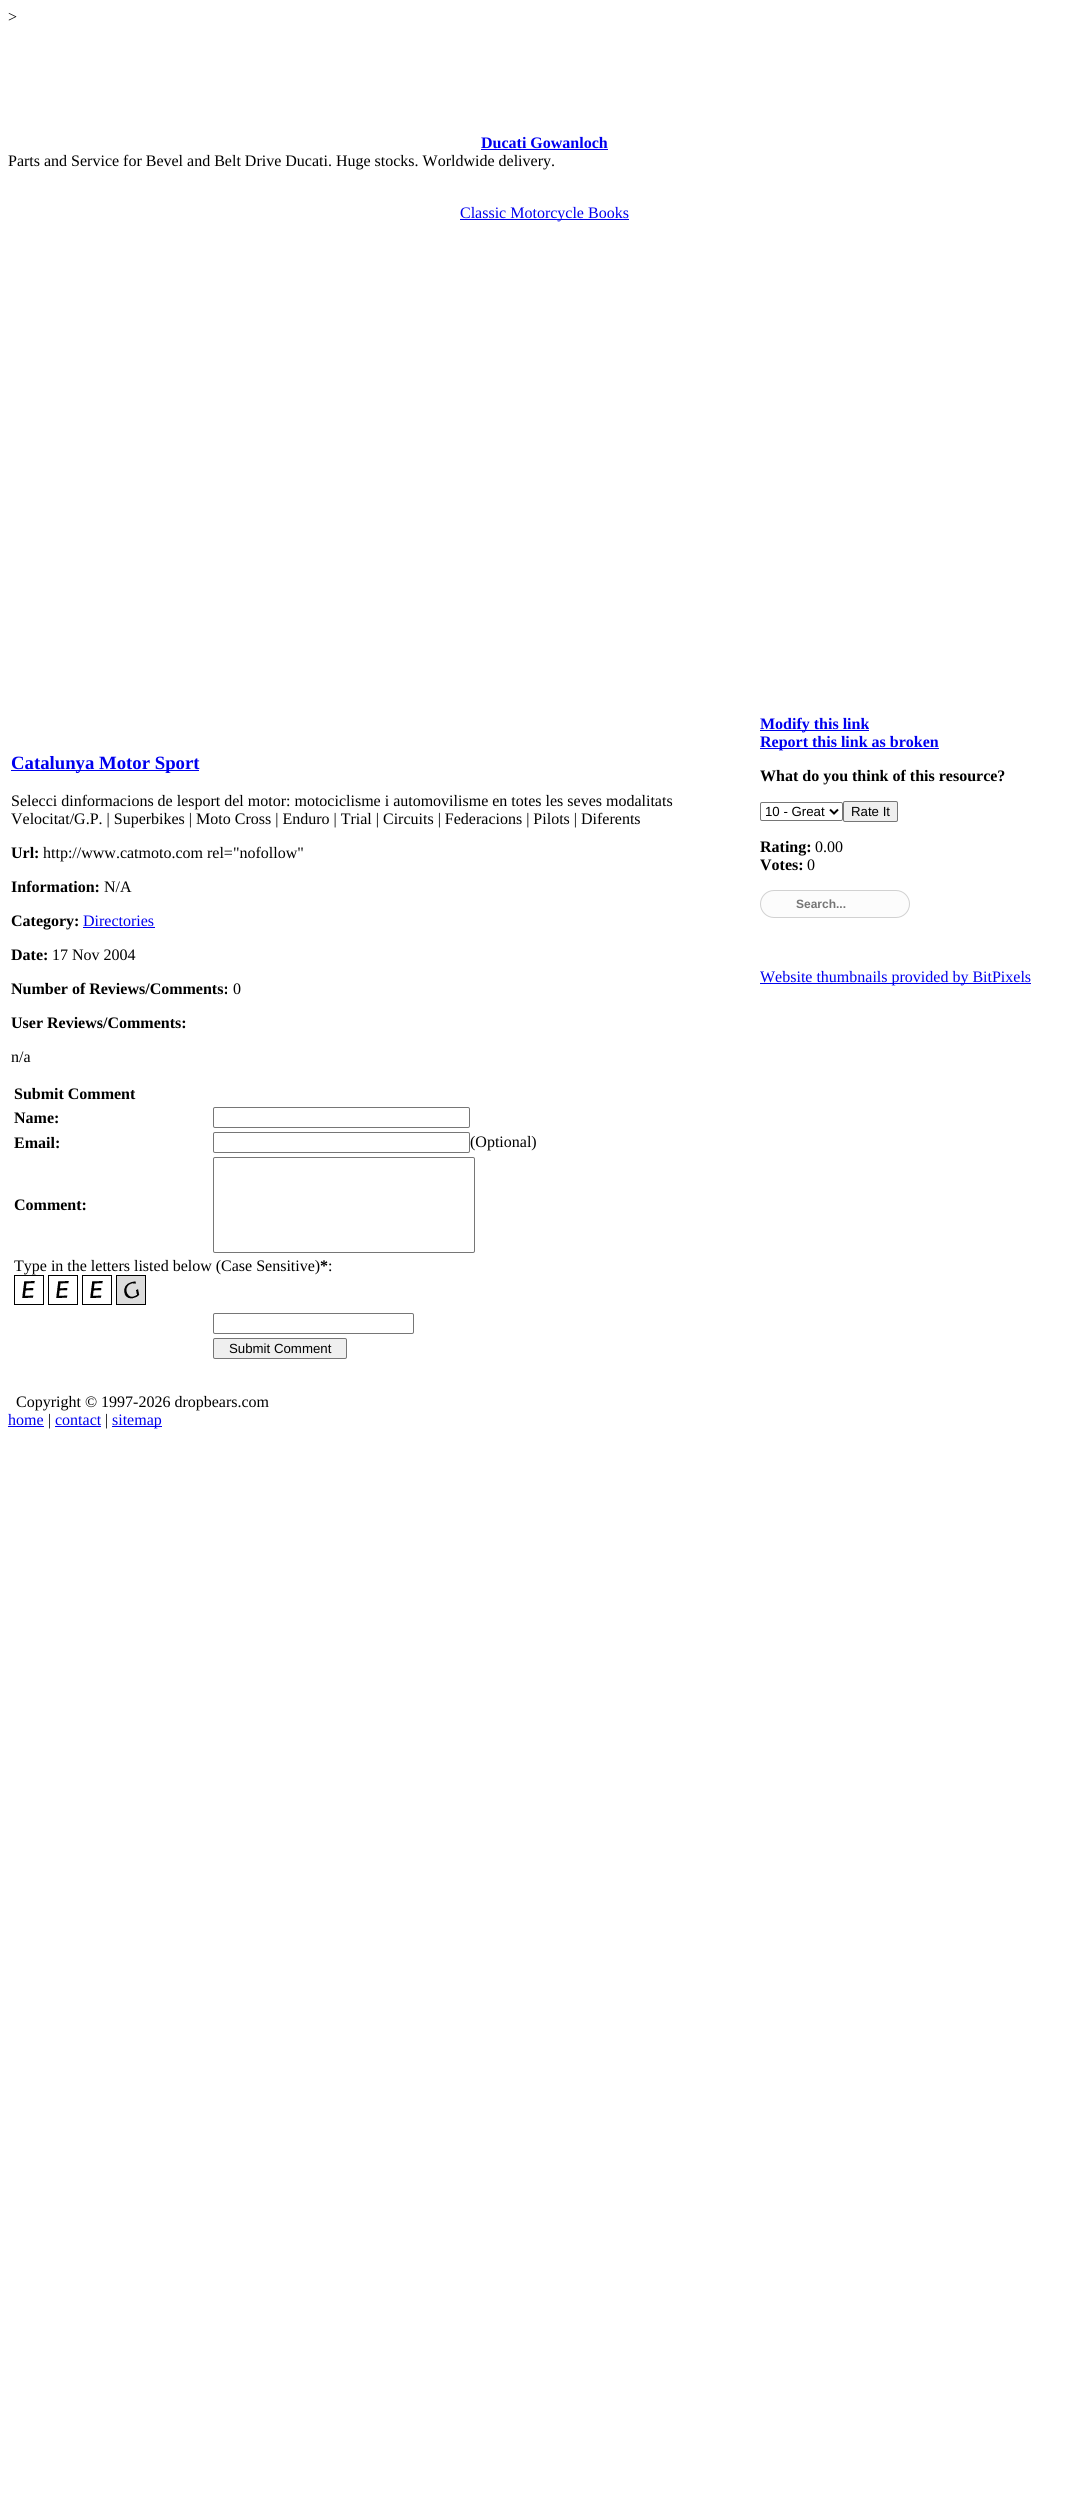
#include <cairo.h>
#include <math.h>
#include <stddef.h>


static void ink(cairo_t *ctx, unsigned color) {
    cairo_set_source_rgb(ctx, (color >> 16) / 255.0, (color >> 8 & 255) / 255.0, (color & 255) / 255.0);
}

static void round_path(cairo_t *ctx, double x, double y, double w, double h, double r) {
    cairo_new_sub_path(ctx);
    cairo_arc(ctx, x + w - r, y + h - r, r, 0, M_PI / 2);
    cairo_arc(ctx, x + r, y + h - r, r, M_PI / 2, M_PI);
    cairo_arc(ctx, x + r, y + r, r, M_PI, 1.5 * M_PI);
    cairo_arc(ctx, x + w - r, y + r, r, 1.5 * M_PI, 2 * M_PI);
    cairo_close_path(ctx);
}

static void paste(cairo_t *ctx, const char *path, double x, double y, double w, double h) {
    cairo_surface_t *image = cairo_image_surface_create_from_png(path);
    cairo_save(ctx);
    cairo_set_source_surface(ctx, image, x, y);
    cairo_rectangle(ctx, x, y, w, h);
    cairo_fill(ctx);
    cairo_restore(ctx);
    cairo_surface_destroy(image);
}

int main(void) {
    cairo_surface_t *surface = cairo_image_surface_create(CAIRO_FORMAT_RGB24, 1089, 2510);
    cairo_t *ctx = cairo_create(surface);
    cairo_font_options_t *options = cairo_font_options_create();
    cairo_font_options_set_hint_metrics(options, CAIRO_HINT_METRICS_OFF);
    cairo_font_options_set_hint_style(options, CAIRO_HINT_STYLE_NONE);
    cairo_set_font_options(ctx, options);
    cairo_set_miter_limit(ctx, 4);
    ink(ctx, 0xFFFFFF);
    cairo_paint(ctx);
    cairo_select_font_face(ctx, "Liberation Serif", CAIRO_FONT_SLANT_NORMAL, CAIRO_FONT_WEIGHT_NORMAL);
    cairo_set_font_size(ctx, 16);
    ink(ctx, 0x000000);
    cairo_move_to(ctx, 8, 22);
    cairo_show_text(ctx, ">");
    cairo_select_font_face(ctx, "Liberation Serif", CAIRO_FONT_SLANT_NORMAL, CAIRO_FONT_WEIGHT_BOLD);
    ink(ctx, 0x0000EE);
    cairo_move_to(ctx, 481, 148);
    cairo_show_text(ctx, "Ducati Gowanloch");
    cairo_rectangle(ctx, 481, 149, 127, 1);
    cairo_fill(ctx);
    cairo_select_font_face(ctx, "Liberation Serif", CAIRO_FONT_SLANT_NORMAL, CAIRO_FONT_WEIGHT_NORMAL);
    ink(ctx, 0x000000);
    cairo_move_to(ctx, 8, 166);
    cairo_show_text(ctx, "Parts and Service for Bevel and Belt Drive Ducati. Huge stocks. Worldwide delivery.");
    ink(ctx, 0x0000EE);
    cairo_rectangle(ctx, 460, 219, 169, 1);
    cairo_fill(ctx);
    cairo_move_to(ctx, 460, 218);
    cairo_show_text(ctx, "Classic Motorcycle Books");
    cairo_rectangle(ctx, 11, 770, 188, 1);
    cairo_fill(ctx);
    cairo_select_font_face(ctx, "Liberation Serif", CAIRO_FONT_SLANT_NORMAL, CAIRO_FONT_WEIGHT_BOLD);
    cairo_set_font_size(ctx, 18.75);
    cairo_move_to(ctx, 11, 769);
    cairo_show_text(ctx, "Catalunya Motor Sport");
    cairo_select_font_face(ctx, "Liberation Serif", CAIRO_FONT_SLANT_NORMAL, CAIRO_FONT_WEIGHT_NORMAL);
    cairo_set_font_size(ctx, 16);
    ink(ctx, 0x000000);
    cairo_move_to(ctx, 11, 806);
    cairo_show_text(ctx, "Selecci dinformacions de lesport del motor: motociclisme i automovilisme en totes les seves modalitats");
    cairo_move_to(ctx, 11, 824);
    cairo_show_text(ctx, "Velocitat/G.P. | Superbikes | Moto Cross | Enduro | Trial | Circuits | Federacions | Pilots | Diferents");
    cairo_select_font_face(ctx, "Liberation Serif", CAIRO_FONT_SLANT_NORMAL, CAIRO_FONT_WEIGHT_BOLD);
    cairo_move_to(ctx, 11, 858);
    cairo_show_text(ctx, "Url:");
    cairo_select_font_face(ctx, "Liberation Serif", CAIRO_FONT_SLANT_NORMAL, CAIRO_FONT_WEIGHT_NORMAL);
    cairo_move_to(ctx, 43, 858);
    cairo_show_text(ctx, "http://www.catmoto.com rel=\"nofollow\"");
    cairo_select_font_face(ctx, "Liberation Serif", CAIRO_FONT_SLANT_NORMAL, CAIRO_FONT_WEIGHT_BOLD);
    cairo_move_to(ctx, 11, 892);
    cairo_show_text(ctx, "Information:");
    cairo_select_font_face(ctx, "Liberation Serif", CAIRO_FONT_SLANT_NORMAL, CAIRO_FONT_WEIGHT_NORMAL);
    cairo_move_to(ctx, 104, 892);
    cairo_show_text(ctx, "N/A");
    cairo_select_font_face(ctx, "Liberation Serif", CAIRO_FONT_SLANT_NORMAL, CAIRO_FONT_WEIGHT_BOLD);
    cairo_move_to(ctx, 11, 926);
    cairo_show_text(ctx, "Category:");
    cairo_select_font_face(ctx, "Liberation Serif", CAIRO_FONT_SLANT_NORMAL, CAIRO_FONT_WEIGHT_NORMAL);
    ink(ctx, 0x0000EE);
    cairo_move_to(ctx, 83, 926);
    cairo_show_text(ctx, "Directories");
    cairo_rectangle(ctx, 83, 927, 72, 1);
    cairo_fill(ctx);
    cairo_select_font_face(ctx, "Liberation Serif", CAIRO_FONT_SLANT_NORMAL, CAIRO_FONT_WEIGHT_BOLD);
    ink(ctx, 0x000000);
    cairo_move_to(ctx, 11, 960);
    cairo_show_text(ctx, "Date:");
    cairo_select_font_face(ctx, "Liberation Serif", CAIRO_FONT_SLANT_NORMAL, CAIRO_FONT_WEIGHT_NORMAL);
    cairo_move_to(ctx, 52, 960);
    cairo_show_text(ctx, "17 Nov 2004");
    cairo_select_font_face(ctx, "Liberation Serif", CAIRO_FONT_SLANT_NORMAL, CAIRO_FONT_WEIGHT_BOLD);
    cairo_move_to(ctx, 11, 994);
    cairo_show_text(ctx, "Number of Reviews/Comments:");
    cairo_select_font_face(ctx, "Liberation Serif", CAIRO_FONT_SLANT_NORMAL, CAIRO_FONT_WEIGHT_NORMAL);
    cairo_move_to(ctx, 233, 994);
    cairo_show_text(ctx, "0");
    cairo_select_font_face(ctx, "Liberation Serif", CAIRO_FONT_SLANT_NORMAL, CAIRO_FONT_WEIGHT_BOLD);
    cairo_move_to(ctx, 11, 1028);
    cairo_show_text(ctx, "User Reviews/Comments:");
    cairo_select_font_face(ctx, "Liberation Serif", CAIRO_FONT_SLANT_NORMAL, CAIRO_FONT_WEIGHT_NORMAL);
    cairo_move_to(ctx, 11, 1062);
    cairo_show_text(ctx, "n/a");
    cairo_select_font_face(ctx, "Liberation Serif", CAIRO_FONT_SLANT_NORMAL, CAIRO_FONT_WEIGHT_BOLD);
    cairo_move_to(ctx, 14, 1099);
    cairo_show_text(ctx, "Submit Comment");
    cairo_move_to(ctx, 14, 1123);
    cairo_show_text(ctx, "Name:");
    round_path(ctx, 213.5, 1107.5, 256, 20, 1.5);
    ink(ctx, 0x767676);
    cairo_set_line_width(ctx, 1);
    cairo_stroke(ctx);
    ink(ctx, 0x000000);
    cairo_move_to(ctx, 14, 1148);
    cairo_show_text(ctx, "Email:");
    round_path(ctx, 213.5, 1132.5, 256, 20, 1.5);
    ink(ctx, 0x767676);
    cairo_stroke(ctx);
    cairo_select_font_face(ctx, "Liberation Serif", CAIRO_FONT_SLANT_NORMAL, CAIRO_FONT_WEIGHT_NORMAL);
    ink(ctx, 0x000000);
    cairo_move_to(ctx, 470, 1147);
    cairo_show_text(ctx, "(Optional)");
    cairo_select_font_face(ctx, "Liberation Serif", CAIRO_FONT_SLANT_NORMAL, CAIRO_FONT_WEIGHT_BOLD);
    cairo_move_to(ctx, 14, 1210);
    cairo_show_text(ctx, "Comment:");
    round_path(ctx, 213.5, 1157.5, 261, 95, 1.5);
    ink(ctx, 0x767676);
    cairo_stroke(ctx);
    cairo_select_font_face(ctx, "Liberation Serif", CAIRO_FONT_SLANT_NORMAL, CAIRO_FONT_WEIGHT_NORMAL);
    ink(ctx, 0x000000);
    cairo_move_to(ctx, 14, 1271);
    cairo_show_text(ctx, "Type in the letters listed below (Case Sensitive)");
    cairo_select_font_face(ctx, "Liberation Serif", CAIRO_FONT_SLANT_NORMAL, CAIRO_FONT_WEIGHT_BOLD);
    cairo_move_to(ctx, 320, 1271);
    cairo_show_text(ctx, "*");
    cairo_select_font_face(ctx, "Liberation Serif", CAIRO_FONT_SLANT_NORMAL, CAIRO_FONT_WEIGHT_NORMAL);
    cairo_move_to(ctx, 328, 1271);
    cairo_show_text(ctx, ":");
    paste(ctx, "media/1.png", 14, 1275, 30, 30);
    paste(ctx, "media/1.png", 48, 1275, 30, 30);
    paste(ctx, "media/1.png", 82, 1275, 30, 30);
    paste(ctx, "media/2.png", 116, 1275, 30, 30);
    round_path(ctx, 213.5, 1313.5, 200, 20, 1.5);
    ink(ctx, 0x767676);
    cairo_stroke(ctx);
    ink(ctx, 0xEFEFEF);
    round_path(ctx, 213.5, 1338.5, 133, 20, 1.5);
    cairo_fill_preserve(ctx);
    ink(ctx, 0x767676);
    cairo_stroke(ctx);
    cairo_select_font_face(ctx, "Liberation Sans", CAIRO_FONT_SLANT_NORMAL, CAIRO_FONT_WEIGHT_NORMAL);
    cairo_set_font_size(ctx, 13.25);
    ink(ctx, 0x000000);
    cairo_move_to(ctx, 229, 1353);
    cairo_show_text(ctx, "Submit Comment");
    ink(ctx, 0x0000EE);
    cairo_rectangle(ctx, 760, 730, 109, 1);
    cairo_fill(ctx);
    cairo_select_font_face(ctx, "Liberation Serif", CAIRO_FONT_SLANT_NORMAL, CAIRO_FONT_WEIGHT_BOLD);
    cairo_set_font_size(ctx, 16);
    cairo_move_to(ctx, 760, 729);
    cairo_show_text(ctx, "Modify this link");
    cairo_rectangle(ctx, 760, 748, 179, 1);
    cairo_fill(ctx);
    cairo_move_to(ctx, 760, 747);
    cairo_show_text(ctx, "Report this link as broken");
    ink(ctx, 0x000000);
    cairo_move_to(ctx, 760, 781);
    cairo_show_text(ctx, "What do you think of this resource?");
    round_path(ctx, 760.5, 802.5, 82, 18, 1.5);
    ink(ctx, 0x767676);
    cairo_stroke(ctx);
    cairo_new_path(ctx);
    cairo_move_to(ctx, 830, 809.5);
    cairo_line_to(ctx, 834, 813.5);
    cairo_line_to(ctx, 838, 809.5);
    ink(ctx, 0x000000);
    cairo_set_line_width(ctx, 2);
    cairo_stroke(ctx);
    cairo_select_font_face(ctx, "Liberation Sans", CAIRO_FONT_SLANT_NORMAL, CAIRO_FONT_WEIGHT_NORMAL);
    cairo_set_font_size(ctx, 13.25);
    cairo_move_to(ctx, 765, 816);
    cairo_show_text(ctx, "10 - Great");
    ink(ctx, 0xEFEFEF);
    round_path(ctx, 843.5, 801.5, 54, 20, 1.5);
    cairo_fill_preserve(ctx);
    ink(ctx, 0x767676);
    cairo_set_line_width(ctx, 1);
    cairo_stroke(ctx);
    ink(ctx, 0x000000);
    cairo_move_to(ctx, 851, 816);
    cairo_show_text(ctx, "Rate It");
    cairo_select_font_face(ctx, "Liberation Serif", CAIRO_FONT_SLANT_NORMAL, CAIRO_FONT_WEIGHT_BOLD);
    cairo_set_font_size(ctx, 16);
    cairo_move_to(ctx, 760, 852);
    cairo_show_text(ctx, "Rating:");
    cairo_select_font_face(ctx, "Liberation Serif", CAIRO_FONT_SLANT_NORMAL, CAIRO_FONT_WEIGHT_NORMAL);
    cairo_move_to(ctx, 815, 852);
    cairo_show_text(ctx, "0.00");
    cairo_select_font_face(ctx, "Liberation Serif", CAIRO_FONT_SLANT_NORMAL, CAIRO_FONT_WEIGHT_BOLD);
    cairo_move_to(ctx, 760, 870);
    cairo_show_text(ctx, "Votes:");
    cairo_select_font_face(ctx, "Liberation Serif", CAIRO_FONT_SLANT_NORMAL, CAIRO_FONT_WEIGHT_NORMAL);
    cairo_move_to(ctx, 807, 870);
    cairo_show_text(ctx, "0");
    ink(ctx, 0xFCFCFC);
    round_path(ctx, 760.5, 890.5, 149, 27, 13.5);
    cairo_fill_preserve(ctx);
    ink(ctx, 0xD1D1D1);
    cairo_stroke(ctx);
    cairo_select_font_face(ctx, "Liberation Sans", CAIRO_FONT_SLANT_NORMAL, CAIRO_FONT_WEIGHT_BOLD);
    cairo_set_font_size(ctx, 12);
    ink(ctx, 0x757575);
    cairo_move_to(ctx, 796, 908);
    cairo_show_text(ctx, "Search...");
    ink(ctx, 0x0000EE);
    cairo_rectangle(ctx, 760, 983, 271, 1);
    cairo_fill(ctx);
    cairo_select_font_face(ctx, "Liberation Serif", CAIRO_FONT_SLANT_NORMAL, CAIRO_FONT_WEIGHT_NORMAL);
    cairo_set_font_size(ctx, 16);
    cairo_move_to(ctx, 760, 982);
    cairo_show_text(ctx, "Website thumbnails provided by BitPixels");
    ink(ctx, 0x000000);
    cairo_move_to(ctx, 16, 1407);
    cairo_show_text(ctx, "Copyright © 1997-2026 dropbears.com");
    ink(ctx, 0x0000EE);
    cairo_move_to(ctx, 8, 1425);
    cairo_show_text(ctx, "home");
    cairo_rectangle(ctx, 8, 1426, 36, 1);
    cairo_fill(ctx);
    ink(ctx, 0x000000);
    cairo_move_to(ctx, 48, 1425);
    cairo_show_text(ctx, "|");
    ink(ctx, 0x0000EE);
    cairo_move_to(ctx, 55, 1425);
    cairo_show_text(ctx, "contact");
    cairo_rectangle(ctx, 55, 1426, 46, 1);
    cairo_fill(ctx);
    ink(ctx, 0x000000);
    cairo_move_to(ctx, 105, 1425);
    cairo_show_text(ctx, "|");
    ink(ctx, 0x0000EE);
    cairo_rectangle(ctx, 112, 1426, 50, 1);
    cairo_fill(ctx);
    cairo_move_to(ctx, 112, 1425);
    cairo_show_text(ctx, "sitemap");
    cairo_surface_write_to_png(surface, "image.png");
    cairo_font_options_destroy(options);
    cairo_destroy(ctx);
    cairo_surface_destroy(surface);
    return 0;
}
